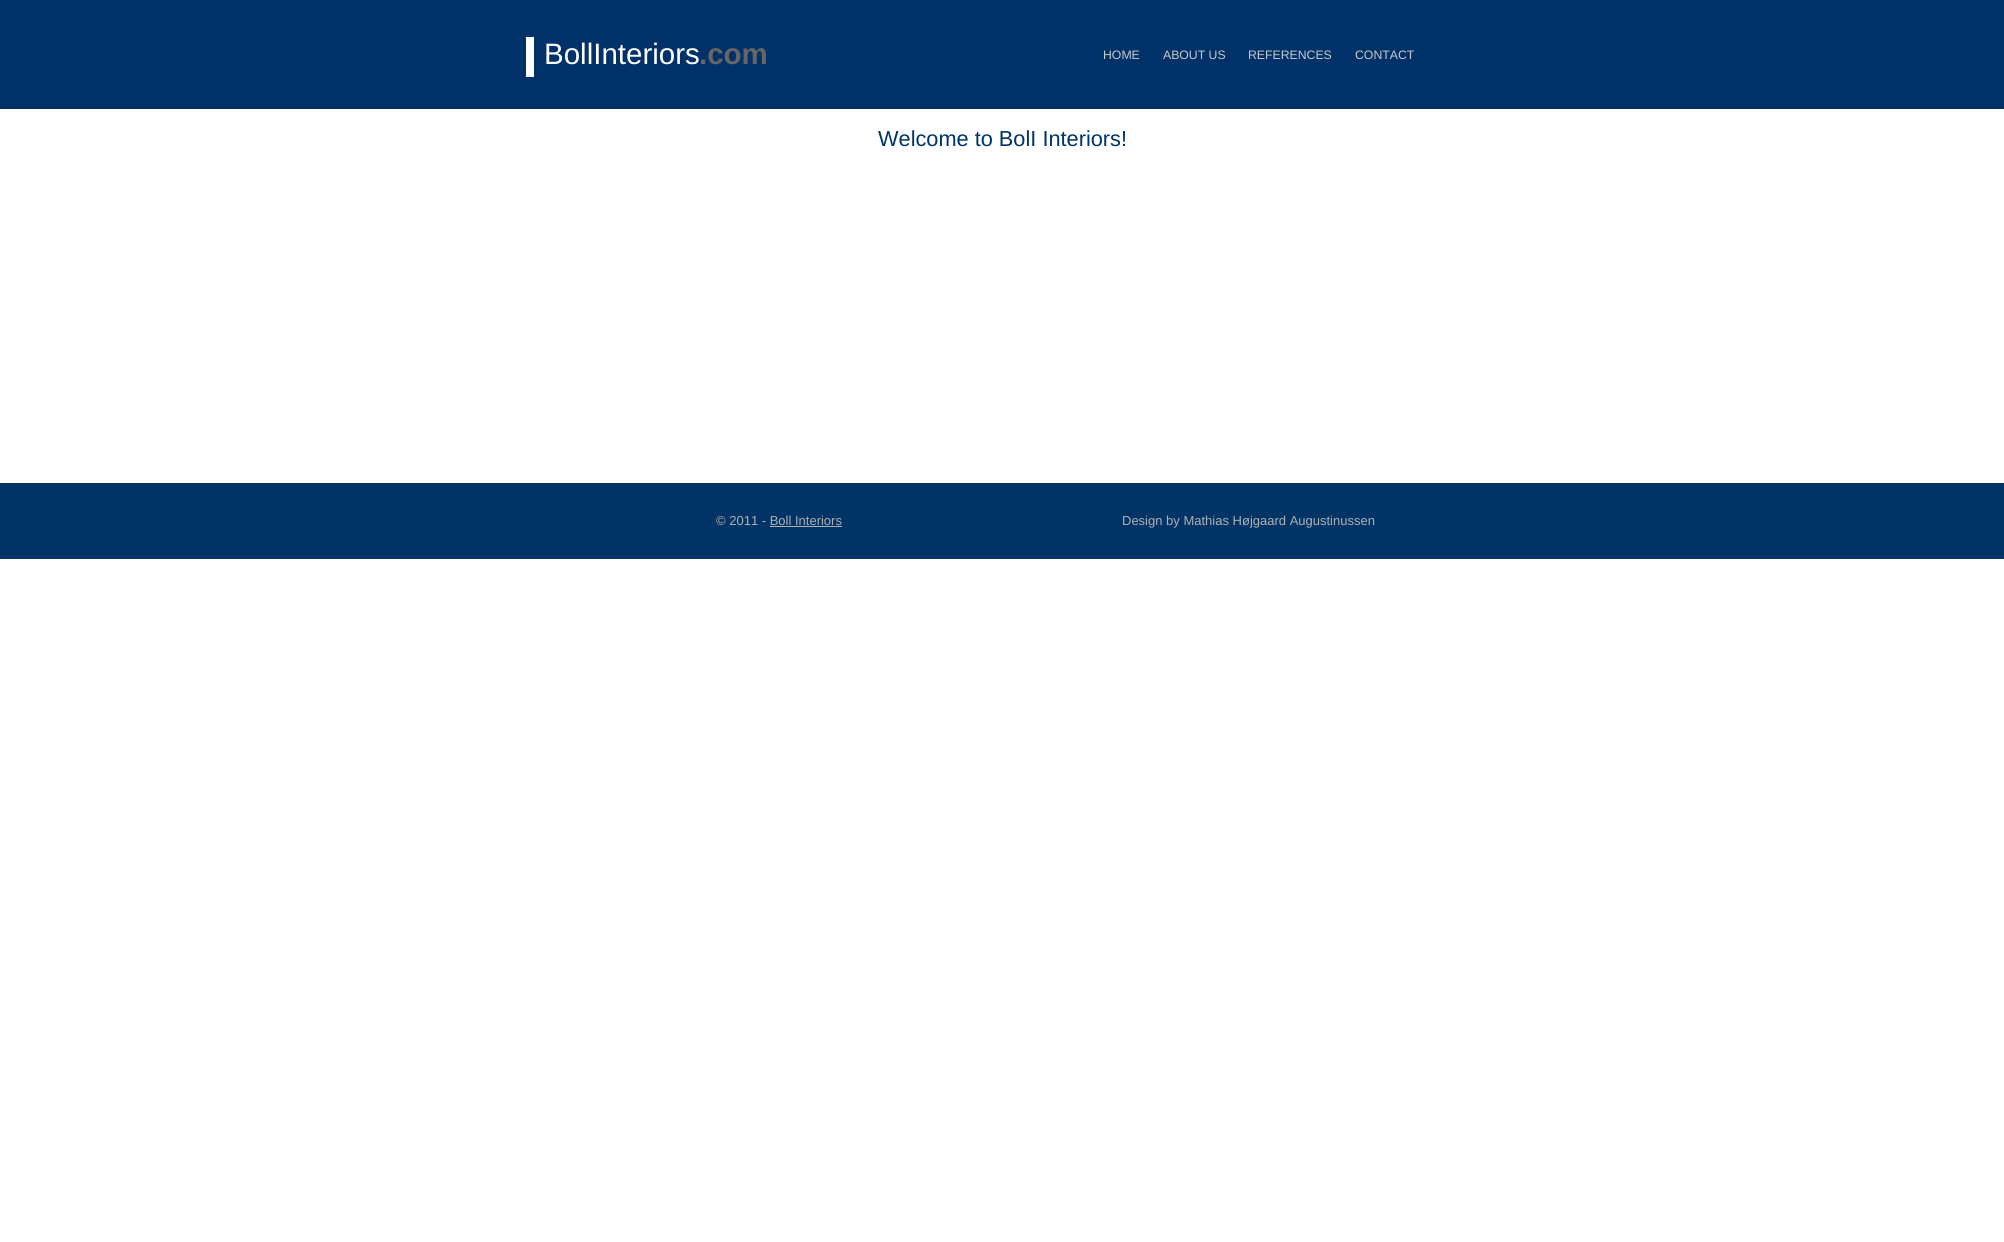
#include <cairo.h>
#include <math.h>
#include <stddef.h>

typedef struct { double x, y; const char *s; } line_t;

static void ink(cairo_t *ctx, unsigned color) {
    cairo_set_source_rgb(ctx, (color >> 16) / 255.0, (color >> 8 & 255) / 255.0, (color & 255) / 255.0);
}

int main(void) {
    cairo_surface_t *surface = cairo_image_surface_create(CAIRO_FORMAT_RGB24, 2004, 1242);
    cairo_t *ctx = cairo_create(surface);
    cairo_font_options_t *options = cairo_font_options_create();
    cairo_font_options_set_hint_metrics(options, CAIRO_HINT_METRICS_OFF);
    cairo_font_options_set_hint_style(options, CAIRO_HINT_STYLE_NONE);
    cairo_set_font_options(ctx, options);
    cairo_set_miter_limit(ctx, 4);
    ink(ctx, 0xFFFFFF);
    cairo_paint(ctx);
    ink(ctx, 0x003168);
    cairo_rectangle(ctx, 0, 0, 2004, 109);
    cairo_fill(ctx);
    cairo_select_font_face(ctx, "Liberation Sans", CAIRO_FONT_SLANT_NORMAL, CAIRO_FONT_WEIGHT_NORMAL);
    cairo_set_font_size(ctx, 29.5);
    ink(ctx, 0xFFFFFF);
    cairo_move_to(ctx, 544, 64);
    cairo_show_text(ctx, "BollInteriors");
    cairo_rectangle(ctx, 526, 37, 8, 40);
    cairo_fill(ctx);
    cairo_select_font_face(ctx, "Liberation Sans", CAIRO_FONT_SLANT_NORMAL, CAIRO_FONT_WEIGHT_BOLD);
    ink(ctx, 0x666666);
    cairo_move_to(ctx, 699, 64);
    cairo_show_text(ctx, ".com");
    cairo_select_font_face(ctx, "Liberation Sans", CAIRO_FONT_SLANT_NORMAL, CAIRO_FONT_WEIGHT_NORMAL);
    cairo_set_font_size(ctx, 12.25);
    ink(ctx, 0xCACACA);
    {
        static const line_t items[] = {
            {1103, 59, "HOME"},
            {1163, 59, "ABOUT US"},
            {1248, 59, "REFERENCES"},
            {1355, 59, "CONTACT"},
        };
        for (size_t i = 0; i < sizeof items / sizeof *items; i++) {
            cairo_move_to(ctx, items[i].x, items[i].y);
            cairo_show_text(ctx, items[i].s);
        }
    }
    cairo_set_font_size(ctx, 21.75);
    ink(ctx, 0x003366);
    cairo_move_to(ctx, 878, 146);
    cairo_show_text(ctx, "Welcome to BolI Interiors!");
    cairo_rectangle(ctx, 0, 483, 2004, 76);
    cairo_fill(ctx);
    cairo_set_font_size(ctx, 13);
    ink(ctx, 0xB1B1B1);
    cairo_move_to(ctx, 716, 525);
    cairo_show_text(ctx, "© 2011 - Boll Interiors");
    cairo_rectangle(ctx, 770, 526, 72, 1);
    cairo_fill(ctx);
    cairo_move_to(ctx, 1122, 525);
    cairo_show_text(ctx, "Design by Mathias Højgaard Augustinussen");
    cairo_surface_write_to_png(surface, "image.png");
    cairo_font_options_destroy(options);
    cairo_destroy(ctx);
    cairo_surface_destroy(surface);
    return 0;
}
